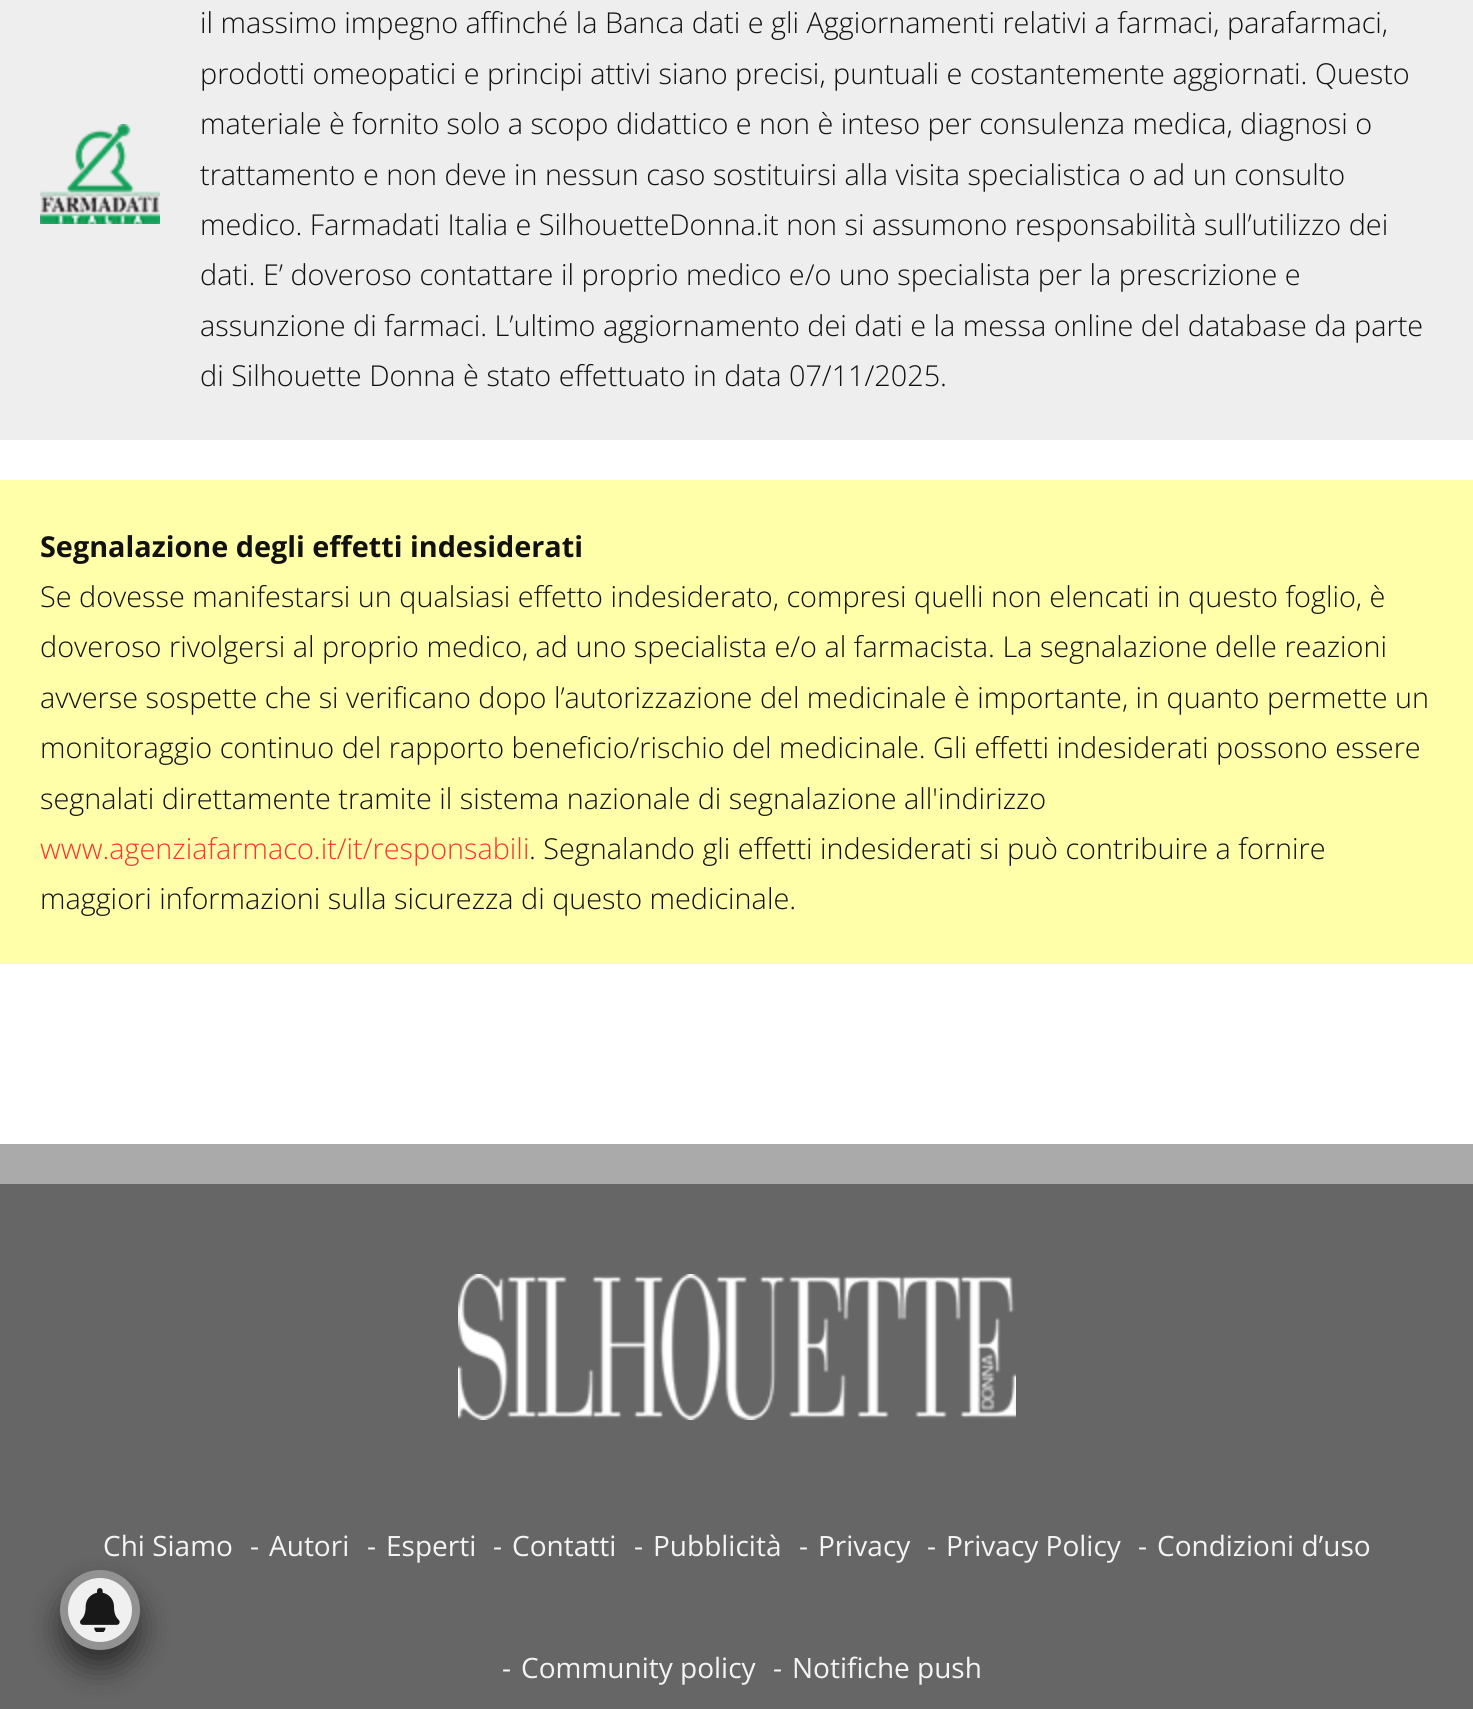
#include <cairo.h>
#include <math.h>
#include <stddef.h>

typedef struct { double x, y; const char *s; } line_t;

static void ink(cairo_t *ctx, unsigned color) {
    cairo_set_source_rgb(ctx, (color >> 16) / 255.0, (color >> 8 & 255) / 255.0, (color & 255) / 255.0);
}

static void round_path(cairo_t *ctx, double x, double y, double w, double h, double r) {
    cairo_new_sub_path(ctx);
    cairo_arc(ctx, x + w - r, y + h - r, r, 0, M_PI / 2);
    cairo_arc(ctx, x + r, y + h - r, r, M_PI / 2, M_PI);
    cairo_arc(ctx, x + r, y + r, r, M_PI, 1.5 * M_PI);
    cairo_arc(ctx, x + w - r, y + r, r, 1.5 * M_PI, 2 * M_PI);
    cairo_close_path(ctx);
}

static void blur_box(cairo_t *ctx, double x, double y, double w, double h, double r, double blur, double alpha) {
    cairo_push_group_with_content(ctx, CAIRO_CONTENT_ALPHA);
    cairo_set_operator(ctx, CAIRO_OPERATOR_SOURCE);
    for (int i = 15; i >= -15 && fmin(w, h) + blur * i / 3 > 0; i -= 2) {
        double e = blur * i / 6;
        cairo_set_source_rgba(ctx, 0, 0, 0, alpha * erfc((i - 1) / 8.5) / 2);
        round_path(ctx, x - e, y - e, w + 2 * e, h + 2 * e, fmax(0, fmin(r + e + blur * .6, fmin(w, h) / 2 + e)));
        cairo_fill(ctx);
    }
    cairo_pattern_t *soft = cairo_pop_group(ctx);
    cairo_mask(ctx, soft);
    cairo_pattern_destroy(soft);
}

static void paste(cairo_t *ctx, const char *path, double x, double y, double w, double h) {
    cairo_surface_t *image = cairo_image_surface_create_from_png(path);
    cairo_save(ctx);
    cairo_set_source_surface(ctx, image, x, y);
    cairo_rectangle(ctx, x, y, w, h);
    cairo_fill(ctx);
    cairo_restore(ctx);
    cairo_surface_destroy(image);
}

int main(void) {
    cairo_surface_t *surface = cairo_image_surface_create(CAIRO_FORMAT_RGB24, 1473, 1709);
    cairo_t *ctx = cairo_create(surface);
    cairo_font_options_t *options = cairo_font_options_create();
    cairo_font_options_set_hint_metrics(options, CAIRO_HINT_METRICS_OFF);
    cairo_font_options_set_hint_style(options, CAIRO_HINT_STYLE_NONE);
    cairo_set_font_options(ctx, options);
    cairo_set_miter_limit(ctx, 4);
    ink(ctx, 0xFFFFFF);
    cairo_paint(ctx);
    ink(ctx, 0xEEEEEE);
    cairo_rectangle(ctx, 0, 0, 1473, 440);
    cairo_fill(ctx);
    paste(ctx, "media/1.png", 40, 124, 120, 100);
    cairo_select_font_face(ctx, "Open Sans Light", CAIRO_FONT_SLANT_NORMAL, CAIRO_FONT_WEIGHT_NORMAL);
    cairo_set_font_size(ctx, 28.8);
    ink(ctx, 0x111111);
    {
        static const line_t items[] = {
            {200, 33, "il massimo impegno affinché la Banca dati e gli Aggiornamenti relativi a farmaci, parafarmaci,"},
            {200, 84, "prodotti omeopatici e principi attivi siano precisi, puntuali e costantemente aggiornati. Questo"},
            {200, 134, "materiale è fornito solo a scopo didattico e non è inteso per consulenza medica, diagnosi o"},
            {200, 185, "trattamento e non deve in nessun caso sostituirsi alla visita specialistica o ad un consulto"},
            {200, 235, "medico. Farmadati Italia e SilhouetteDonna.it non si assumono responsabilità sull’utilizzo dei"},
            {200, 285, "dati. E’ doveroso contattare il proprio medico e/o uno specialista per la prescrizione e"},
            {200, 336, "assunzione di farmaci. L’ultimo aggiornamento dei dati e la messa online del database da parte"},
            {200, 386, "di Silhouette Donna è stato effettuato in data 07/11/2025."},
        };
        for (size_t i = 0; i < sizeof items / sizeof *items; i++) {
            cairo_move_to(ctx, items[i].x, items[i].y);
            cairo_show_text(ctx, items[i].s);
        }
    }
    ink(ctx, 0xFFFFAA);
    cairo_rectangle(ctx, 0, 480, 1473, 484);
    cairo_fill(ctx);
    cairo_select_font_face(ctx, "Open Sans", CAIRO_FONT_SLANT_NORMAL, CAIRO_FONT_WEIGHT_BOLD);
    ink(ctx, 0x111111);
    cairo_move_to(ctx, 40, 557);
    cairo_show_text(ctx, "Segnalazione degli effetti indesiderati");
    cairo_select_font_face(ctx, "Open Sans Light", CAIRO_FONT_SLANT_NORMAL, CAIRO_FONT_WEIGHT_NORMAL);
    {
        static const line_t items[] = {
            {40, 607, "Se dovesse manifestarsi un qualsiasi effetto indesiderato, compresi quelli non elencati in questo foglio, è"},
            {40, 657, "doveroso rivolgersi al proprio medico, ad uno specialista e/o al farmacista. La segnalazione delle reazioni"},
            {40, 708, "avverse sospette che si verificano dopo l’autorizzazione del medicinale è importante, in quanto permette un"},
            {40, 758, "monitoraggio continuo del rapporto beneficio/rischio del medicinale. Gli effetti indesiderati possono essere"},
            {40, 809, "segnalati direttamente tramite il sistema nazionale di segnalazione all'indirizzo"},
        };
        for (size_t i = 0; i < sizeof items / sizeof *items; i++) {
            cairo_move_to(ctx, items[i].x, items[i].y);
            cairo_show_text(ctx, items[i].s);
        }
    }
    ink(ctx, 0xFF3334);
    cairo_move_to(ctx, 40, 859);
    cairo_show_text(ctx, "www.agenziafarmaco.it/it/responsabili");
    ink(ctx, 0x111111);
    cairo_move_to(ctx, 529, 859);
    cairo_show_text(ctx, ". Segnalando gli effetti indesiderati si può contribuire a fornire");
    cairo_move_to(ctx, 40, 909);
    cairo_show_text(ctx, "maggiori informazioni sulla sicurezza di questo medicinale.");
    ink(ctx, 0x666666);
    cairo_rectangle(ctx, 0, 1184, 1473, 525);
    cairo_fill(ctx);
    paste(ctx, "media/2.png", 458, 1274, 558, 146);
    ink(ctx, 0xAAAAAA);
    cairo_rectangle(ctx, 0, 1144, 1473, 40);
    cairo_fill(ctx);
    cairo_select_font_face(ctx, "Open Sans", CAIRO_FONT_SLANT_NORMAL, CAIRO_FONT_WEIGHT_NORMAL);
    cairo_set_font_size(ctx, 28);
    ink(ctx, 0xF4F4F4);
    {
        static const line_t items[] = {
            {103, 1556, "Chi Siamo"},
            {250, 1556, "-"},
            {269, 1556, "Autori"},
            {367, 1556, "-"},
            {386, 1556, "Esperti"},
            {493, 1556, "-"},
            {512, 1556, "Contatti"},
            {634, 1556, "-"},
            {653, 1556, "Pubblicità"},
            {799, 1556, "-"},
            {818, 1556, "Privacy"},
            {927, 1556, "-"},
            {946, 1556, "Privacy Policy"},
            {1138, 1556, "-"},
            {1157, 1556, "Condizioni d’uso"},
            {502, 1678, "-"},
            {521, 1678, "Community policy"},
            {773, 1678, "-"},
            {792, 1678, "Notifiche push"},
        };
        for (size_t i = 0; i < sizeof items / sizeof *items; i++) {
            cairo_move_to(ctx, items[i].x, items[i].y);
            cairo_show_text(ctx, items[i].s);
        }
    }
    ink(ctx, 0x0A0A0A);
    blur_box(ctx, 60, 1588, 80, 80, 40, 15, 0.6);
    ink(ctx, 0xF0F0F0);
    cairo_arc(ctx, 100, 1610, 36, 0, 2 * M_PI);
    cairo_fill_preserve(ctx);
    ink(ctx, 0x929292);
    cairo_set_line_width(ctx, 8);
    cairo_stroke(ctx);
    paste(ctx, "media/3.png", 80, 1588, 40, 44);
    cairo_surface_write_to_png(surface, "image.png");
    cairo_font_options_destroy(options);
    cairo_destroy(ctx);
    cairo_surface_destroy(surface);
    return 0;
}
